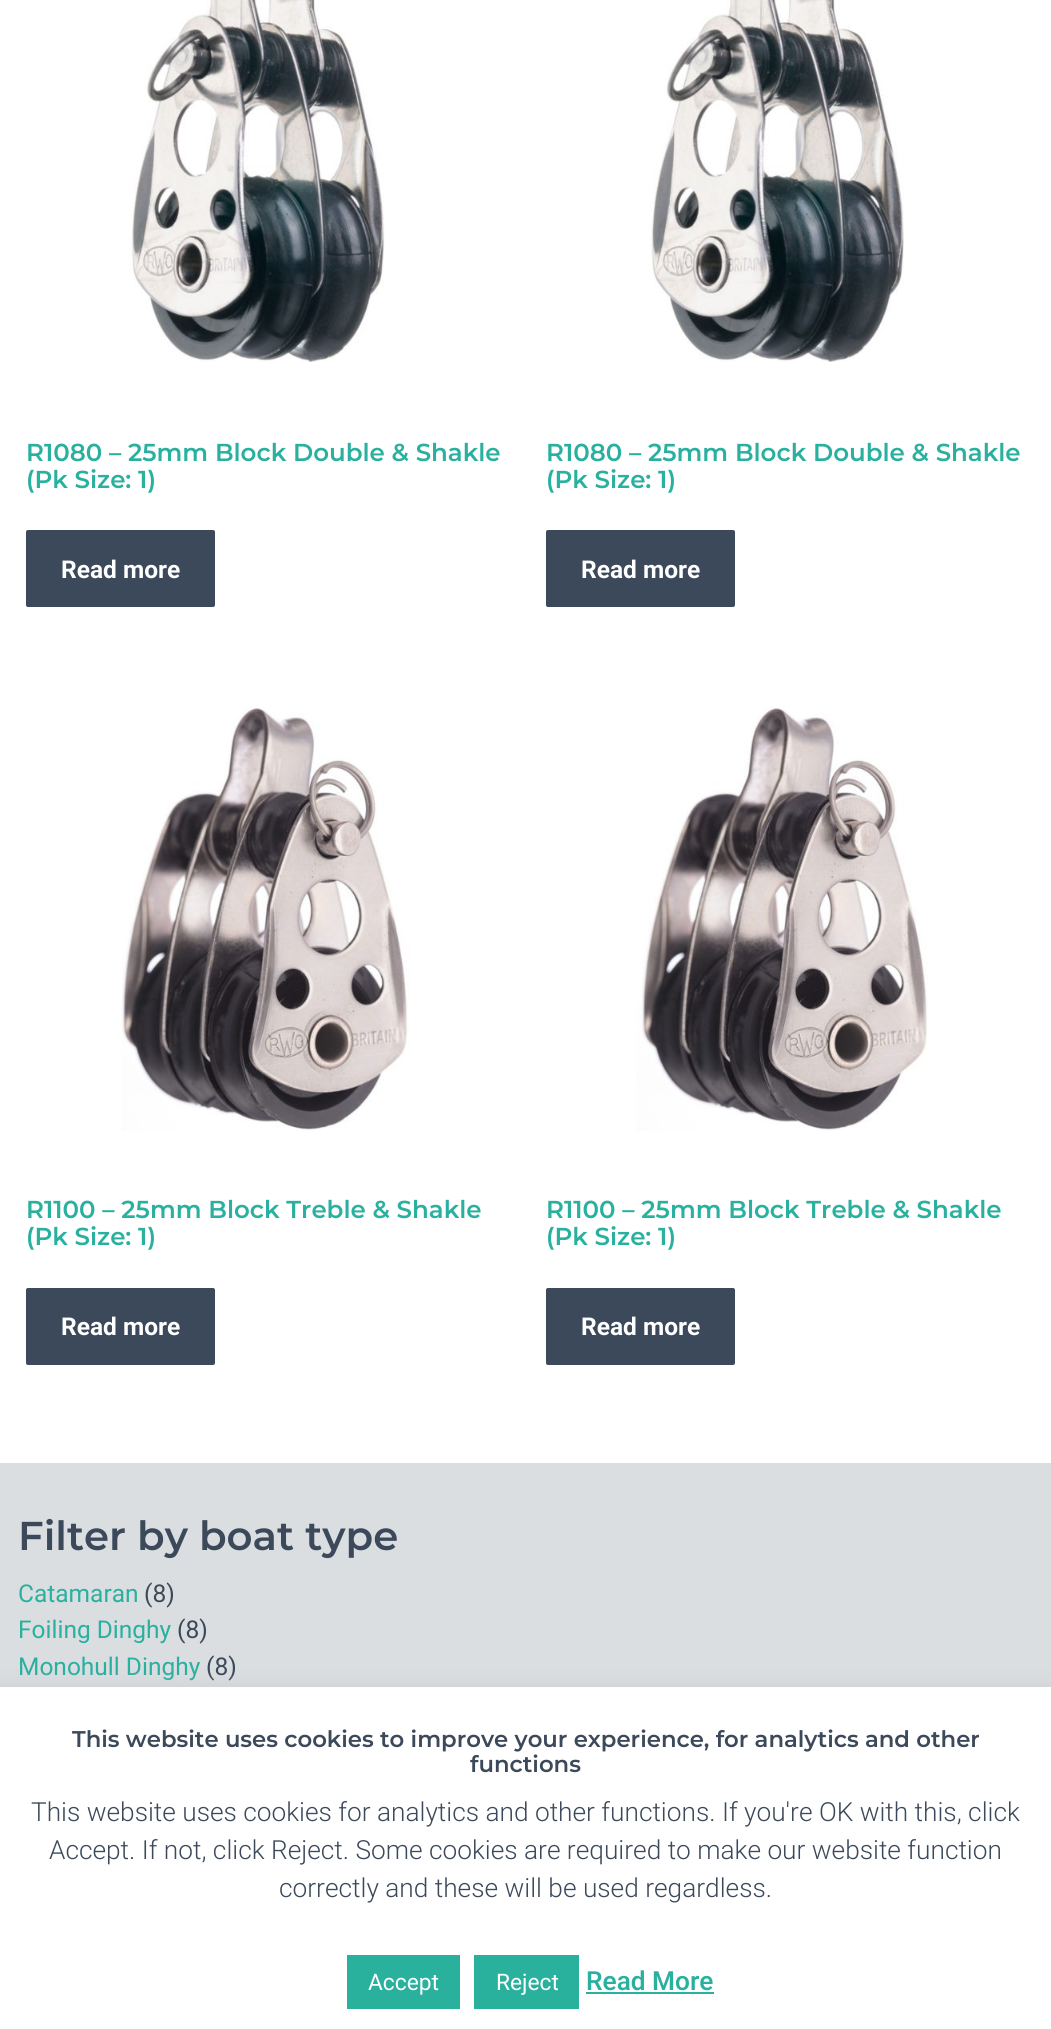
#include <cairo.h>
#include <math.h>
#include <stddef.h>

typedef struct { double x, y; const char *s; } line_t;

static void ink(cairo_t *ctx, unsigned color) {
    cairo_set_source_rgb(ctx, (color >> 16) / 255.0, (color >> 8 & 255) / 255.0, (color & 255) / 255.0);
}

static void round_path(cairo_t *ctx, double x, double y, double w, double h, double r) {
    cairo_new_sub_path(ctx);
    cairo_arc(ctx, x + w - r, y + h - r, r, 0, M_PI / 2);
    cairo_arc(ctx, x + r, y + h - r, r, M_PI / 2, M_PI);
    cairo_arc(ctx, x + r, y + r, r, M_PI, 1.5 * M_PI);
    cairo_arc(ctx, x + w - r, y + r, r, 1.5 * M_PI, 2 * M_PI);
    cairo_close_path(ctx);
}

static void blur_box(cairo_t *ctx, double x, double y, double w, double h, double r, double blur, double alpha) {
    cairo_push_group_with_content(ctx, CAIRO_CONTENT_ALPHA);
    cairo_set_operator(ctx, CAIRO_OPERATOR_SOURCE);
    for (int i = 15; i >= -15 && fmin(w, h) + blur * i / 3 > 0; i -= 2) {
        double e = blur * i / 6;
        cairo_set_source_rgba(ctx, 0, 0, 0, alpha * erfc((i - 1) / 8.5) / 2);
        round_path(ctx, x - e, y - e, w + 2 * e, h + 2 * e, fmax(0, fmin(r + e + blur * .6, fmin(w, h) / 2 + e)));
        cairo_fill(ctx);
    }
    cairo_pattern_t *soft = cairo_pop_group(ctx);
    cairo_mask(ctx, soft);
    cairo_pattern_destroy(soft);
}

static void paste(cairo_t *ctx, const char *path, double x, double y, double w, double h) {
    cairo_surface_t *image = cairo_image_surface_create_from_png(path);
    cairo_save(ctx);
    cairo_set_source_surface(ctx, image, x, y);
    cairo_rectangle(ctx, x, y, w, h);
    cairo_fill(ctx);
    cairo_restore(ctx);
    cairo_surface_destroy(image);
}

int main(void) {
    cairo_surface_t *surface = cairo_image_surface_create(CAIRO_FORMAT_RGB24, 1051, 2029);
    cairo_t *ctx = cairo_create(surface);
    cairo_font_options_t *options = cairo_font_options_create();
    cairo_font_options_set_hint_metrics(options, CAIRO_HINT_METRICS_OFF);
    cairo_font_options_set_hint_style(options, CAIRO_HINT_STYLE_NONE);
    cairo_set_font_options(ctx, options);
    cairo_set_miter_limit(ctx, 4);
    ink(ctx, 0xFFFFFF);
    cairo_paint(ctx);
    paste(ctx, "media/1.png", 129, 0, 256, 362);
    cairo_select_font_face(ctx, "Montserrat SemiBold", CAIRO_FONT_SLANT_NORMAL, CAIRO_FONT_WEIGHT_NORMAL);
    cairo_set_font_size(ctx, 24.5);
    ink(ctx, 0x29B09F);
    cairo_move_to(ctx, 26, 461);
    cairo_show_text(ctx, "R1080 – 25mm Block Double & Shakle");
    cairo_move_to(ctx, 26, 488);
    cairo_show_text(ctx, "(Pk Size: 1)");
    ink(ctx, 0x3C495A);
    round_path(ctx, 26, 530, 189, 77, 2);
    cairo_fill(ctx);
    cairo_select_font_face(ctx, "Roboto", CAIRO_FONT_SLANT_NORMAL, CAIRO_FONT_WEIGHT_BOLD);
    ink(ctx, 0xFFFFFF);
    cairo_move_to(ctx, 61, 578);
    cairo_show_text(ctx, "Read more");
    paste(ctx, "media/2.png", 649, 0, 255, 362);
    cairo_select_font_face(ctx, "Montserrat SemiBold", CAIRO_FONT_SLANT_NORMAL, CAIRO_FONT_WEIGHT_NORMAL);
    ink(ctx, 0x29B09F);
    cairo_move_to(ctx, 546, 461);
    cairo_show_text(ctx, "R1080 – 25mm Block Double & Shakle");
    cairo_move_to(ctx, 546, 488);
    cairo_show_text(ctx, "(Pk Size: 1)");
    ink(ctx, 0x3C495A);
    round_path(ctx, 546, 530, 189, 77, 2);
    cairo_fill(ctx);
    cairo_select_font_face(ctx, "Roboto", CAIRO_FONT_SLANT_NORMAL, CAIRO_FONT_WEIGHT_BOLD);
    ink(ctx, 0xFFFFFF);
    cairo_move_to(ctx, 581, 578);
    cairo_show_text(ctx, "Read more");
    paste(ctx, "media/3.png", 121, 707, 289, 424);
    cairo_select_font_face(ctx, "Montserrat SemiBold", CAIRO_FONT_SLANT_NORMAL, CAIRO_FONT_WEIGHT_NORMAL);
    ink(ctx, 0x29B09F);
    cairo_move_to(ctx, 26, 1218);
    cairo_show_text(ctx, "R1100 – 25mm Block Treble & Shakle");
    cairo_move_to(ctx, 26, 1245);
    cairo_show_text(ctx, "(Pk Size: 1)");
    ink(ctx, 0x3C495A);
    round_path(ctx, 26, 1288, 189, 77, 2);
    cairo_fill(ctx);
    cairo_select_font_face(ctx, "Roboto", CAIRO_FONT_SLANT_NORMAL, CAIRO_FONT_WEIGHT_BOLD);
    ink(ctx, 0xFFFFFF);
    cairo_move_to(ctx, 61, 1335);
    cairo_show_text(ctx, "Read more");
    paste(ctx, "media/4.png", 636, 706, 292, 425);
    cairo_select_font_face(ctx, "Montserrat SemiBold", CAIRO_FONT_SLANT_NORMAL, CAIRO_FONT_WEIGHT_NORMAL);
    ink(ctx, 0x29B09F);
    cairo_move_to(ctx, 546, 1218);
    cairo_show_text(ctx, "R1100 – 25mm Block Treble & Shakle");
    cairo_move_to(ctx, 546, 1245);
    cairo_show_text(ctx, "(Pk Size: 1)");
    ink(ctx, 0x3C495A);
    round_path(ctx, 546, 1288, 189, 77, 2);
    cairo_fill(ctx);
    cairo_select_font_face(ctx, "Roboto", CAIRO_FONT_SLANT_NORMAL, CAIRO_FONT_WEIGHT_BOLD);
    ink(ctx, 0xFFFFFF);
    cairo_move_to(ctx, 581, 1335);
    cairo_show_text(ctx, "Read more");
    ink(ctx, 0xDBDEE1);
    cairo_rectangle(ctx, 0, 1463, 1051, 224);
    cairo_fill(ctx);
    cairo_select_font_face(ctx, "Montserrat SemiBold", CAIRO_FONT_SLANT_NORMAL, CAIRO_FONT_WEIGHT_NORMAL);
    cairo_set_font_size(ctx, 40.25);
    ink(ctx, 0x3C495A);
    cairo_move_to(ctx, 18, 1550);
    cairo_show_text(ctx, "Filter by boat type");
    cairo_select_font_face(ctx, "Roboto", CAIRO_FONT_SLANT_NORMAL, CAIRO_FONT_WEIGHT_NORMAL);
    cairo_set_font_size(ctx, 24.5);
    ink(ctx, 0x29B09F);
    cairo_move_to(ctx, 18, 1602);
    cairo_show_text(ctx, "Catamaran");
    ink(ctx, 0x3C495A);
    cairo_move_to(ctx, 144, 1602);
    cairo_show_text(ctx, "(8)");
    ink(ctx, 0x29B09F);
    cairo_move_to(ctx, 18, 1638);
    cairo_show_text(ctx, "Foiling Dinghy");
    ink(ctx, 0x3C495A);
    cairo_move_to(ctx, 177, 1638);
    cairo_show_text(ctx, "(8)");
    ink(ctx, 0x29B09F);
    cairo_move_to(ctx, 18, 1675);
    cairo_show_text(ctx, "Monohull Dinghy");
    ink(ctx, 0x3C495A);
    cairo_move_to(ctx, 206, 1675);
    cairo_show_text(ctx, "(8)");
    ink(ctx, 0xACABAB);
    blur_box(ctx, 0, 1685, 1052, 343, 0, 9, 0.3);
    ink(ctx, 0xFFFFFF);
    cairo_rectangle(ctx, 0, 1687, 1051, 342);
    cairo_fill(ctx);
    cairo_select_font_face(ctx, "Montserrat SemiBold", CAIRO_FONT_SLANT_NORMAL, CAIRO_FONT_WEIGHT_NORMAL);
    cairo_set_font_size(ctx, 22.75);
    ink(ctx, 0x3C495A);
    cairo_move_to(ctx, 72, 1747);
    cairo_show_text(ctx, "This website uses cookies to improve your experience, for analytics and other");
    cairo_move_to(ctx, 470, 1772);
    cairo_show_text(ctx, "functions");
    cairo_select_font_face(ctx, "Roboto Light", CAIRO_FONT_SLANT_NORMAL, CAIRO_FONT_WEIGHT_NORMAL);
    cairo_set_font_size(ctx, 26.25);
    {
        static const line_t items[] = {
            {31, 1821, "This website uses cookies for analytics and other functions. If you're OK with this, click"},
            {49, 1859, "Accept. If not, click Reject. Some cookies are required to make our website function"},
            {279, 1897, "correctly and these will be used regardless."},
        };
        for (size_t i = 0; i < sizeof items / sizeof *items; i++) {
            cairo_move_to(ctx, items[i].x, items[i].y);
            cairo_show_text(ctx, items[i].s);
        }
    }
    ink(ctx, 0x2AB19E);
    cairo_rectangle(ctx, 347, 1955, 113, 54);
    cairo_fill(ctx);
    cairo_select_font_face(ctx, "Roboto", CAIRO_FONT_SLANT_NORMAL, CAIRO_FONT_WEIGHT_NORMAL);
    cairo_set_font_size(ctx, 22.75);
    ink(ctx, 0xFFFFFF);
    cairo_move_to(ctx, 368, 1990);
    cairo_show_text(ctx, "Accept");
    ink(ctx, 0x2AB19E);
    cairo_rectangle(ctx, 474, 1955, 105, 54);
    cairo_fill(ctx);
    ink(ctx, 0xFFFFFF);
    cairo_move_to(ctx, 496, 1990);
    cairo_show_text(ctx, "Reject");
    cairo_select_font_face(ctx, "Roboto Medium", CAIRO_FONT_SLANT_NORMAL, CAIRO_FONT_WEIGHT_NORMAL);
    cairo_set_font_size(ctx, 26.25);
    ink(ctx, 0x29B09F);
    cairo_move_to(ctx, 586, 1990);
    cairo_show_text(ctx, "Read More");
    ink(ctx, 0x2AB19E);
    cairo_rectangle(ctx, 586, 1992, 128, 2);
    cairo_fill(ctx);
    cairo_surface_write_to_png(surface, "image.png");
    cairo_font_options_destroy(options);
    cairo_destroy(ctx);
    cairo_surface_destroy(surface);
    return 0;
}
